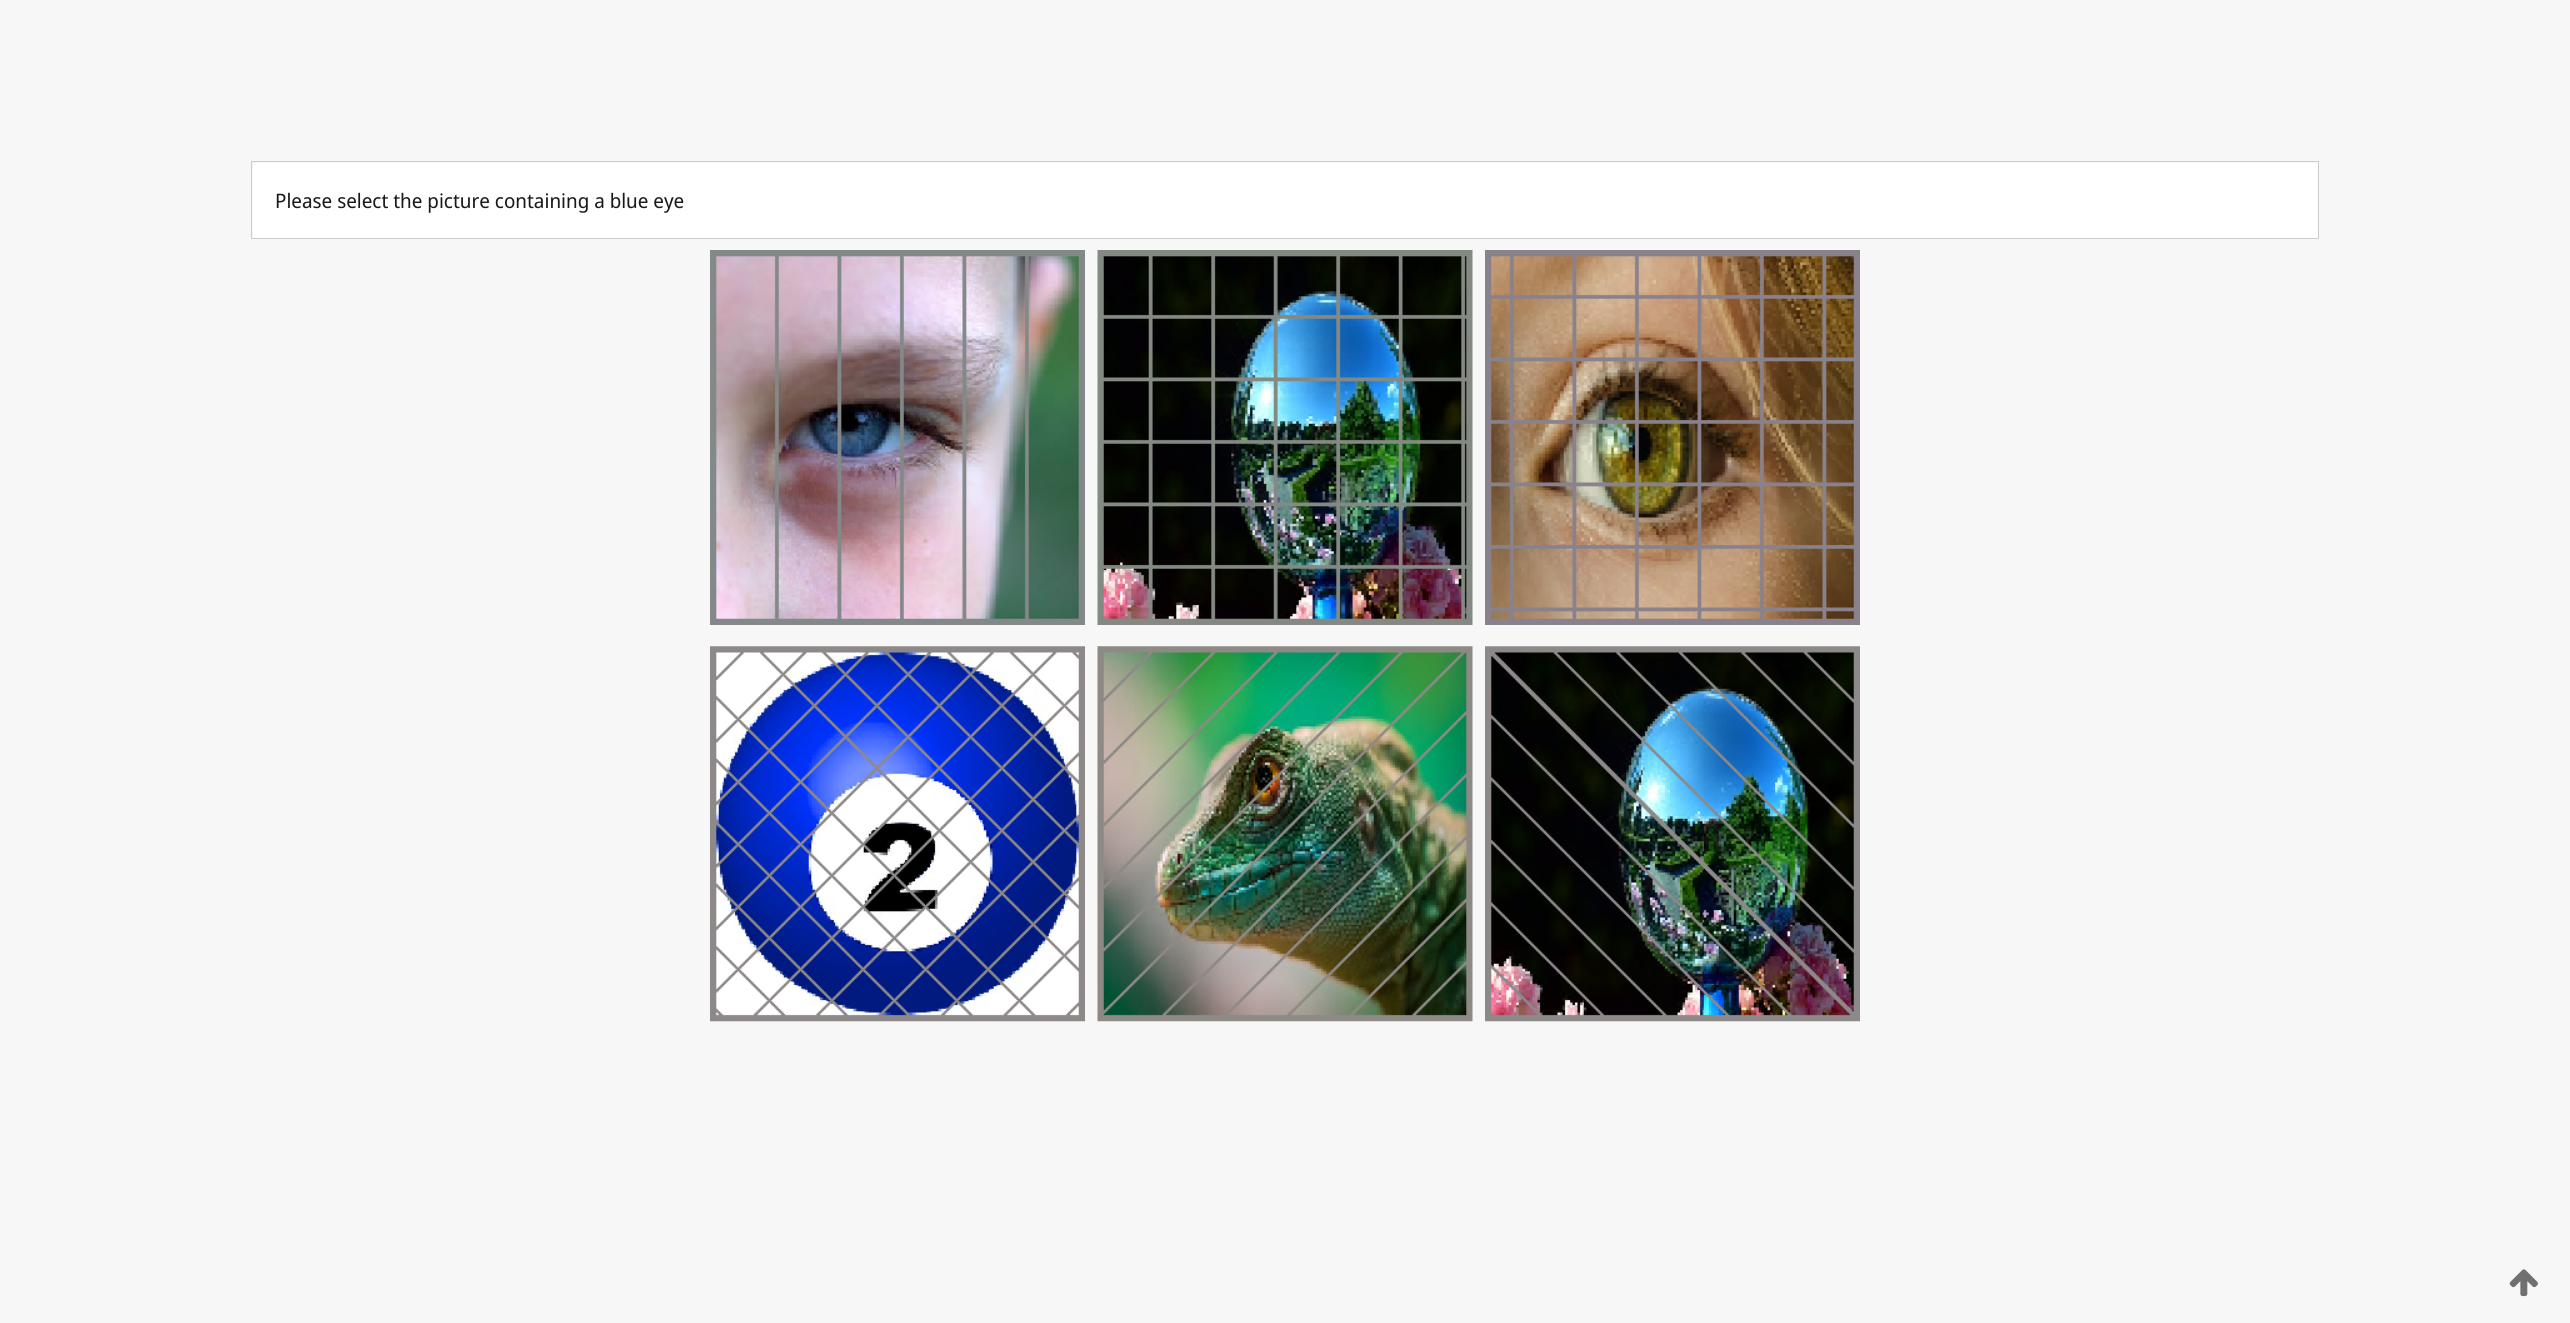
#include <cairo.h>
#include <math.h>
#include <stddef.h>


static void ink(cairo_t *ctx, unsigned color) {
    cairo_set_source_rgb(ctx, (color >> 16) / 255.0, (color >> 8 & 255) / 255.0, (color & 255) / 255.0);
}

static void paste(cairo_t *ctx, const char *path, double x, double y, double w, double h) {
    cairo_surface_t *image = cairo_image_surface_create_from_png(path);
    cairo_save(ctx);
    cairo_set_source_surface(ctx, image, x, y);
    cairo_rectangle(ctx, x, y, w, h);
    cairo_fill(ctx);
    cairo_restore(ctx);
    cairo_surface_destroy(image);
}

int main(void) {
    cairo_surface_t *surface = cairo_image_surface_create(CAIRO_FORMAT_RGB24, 2570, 1323);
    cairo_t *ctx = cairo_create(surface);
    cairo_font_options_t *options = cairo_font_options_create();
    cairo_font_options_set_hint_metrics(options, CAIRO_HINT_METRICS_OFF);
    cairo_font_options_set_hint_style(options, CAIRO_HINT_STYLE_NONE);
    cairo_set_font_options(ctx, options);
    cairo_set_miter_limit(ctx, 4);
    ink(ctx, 0xF7F7F7);
    cairo_paint(ctx);
    ink(ctx, 0xFFFFFF);
    cairo_rectangle(ctx, 253, 163, 2065, 75);
    cairo_fill(ctx);
    cairo_rectangle(ctx, 251.5, 161.5, 2067, 77);
    ink(ctx, 0xCCCCCC);
    cairo_set_line_width(ctx, 1);
    cairo_stroke(ctx);
    cairo_select_font_face(ctx, "Noto Sans Display", CAIRO_FONT_SLANT_NORMAL, CAIRO_FONT_WEIGHT_NORMAL);
    cairo_set_font_size(ctx, 20);
    ink(ctx, 0x1A1A1A);
    cairo_move_to(ctx, 275, 208);
    cairo_show_text(ctx, "Please select the picture containing a blue eye");
    paste(ctx, "media/1.png", 710, 250, 375, 375);
    paste(ctx, "media/2.png", 1097, 250, 376, 375);
    paste(ctx, "media/3.png", 1485, 250, 375, 375);
    paste(ctx, "media/4.png", 710, 646, 375, 376);
    paste(ctx, "media/5.png", 1097, 646, 376, 376);
    paste(ctx, "media/6.png", 1485, 646, 375, 376);
    paste(ctx, "media/7.png", 2509, 1269, 29, 28);
    cairo_surface_write_to_png(surface, "image.png");
    cairo_font_options_destroy(options);
    cairo_destroy(ctx);
    cairo_surface_destroy(surface);
    return 0;
}
